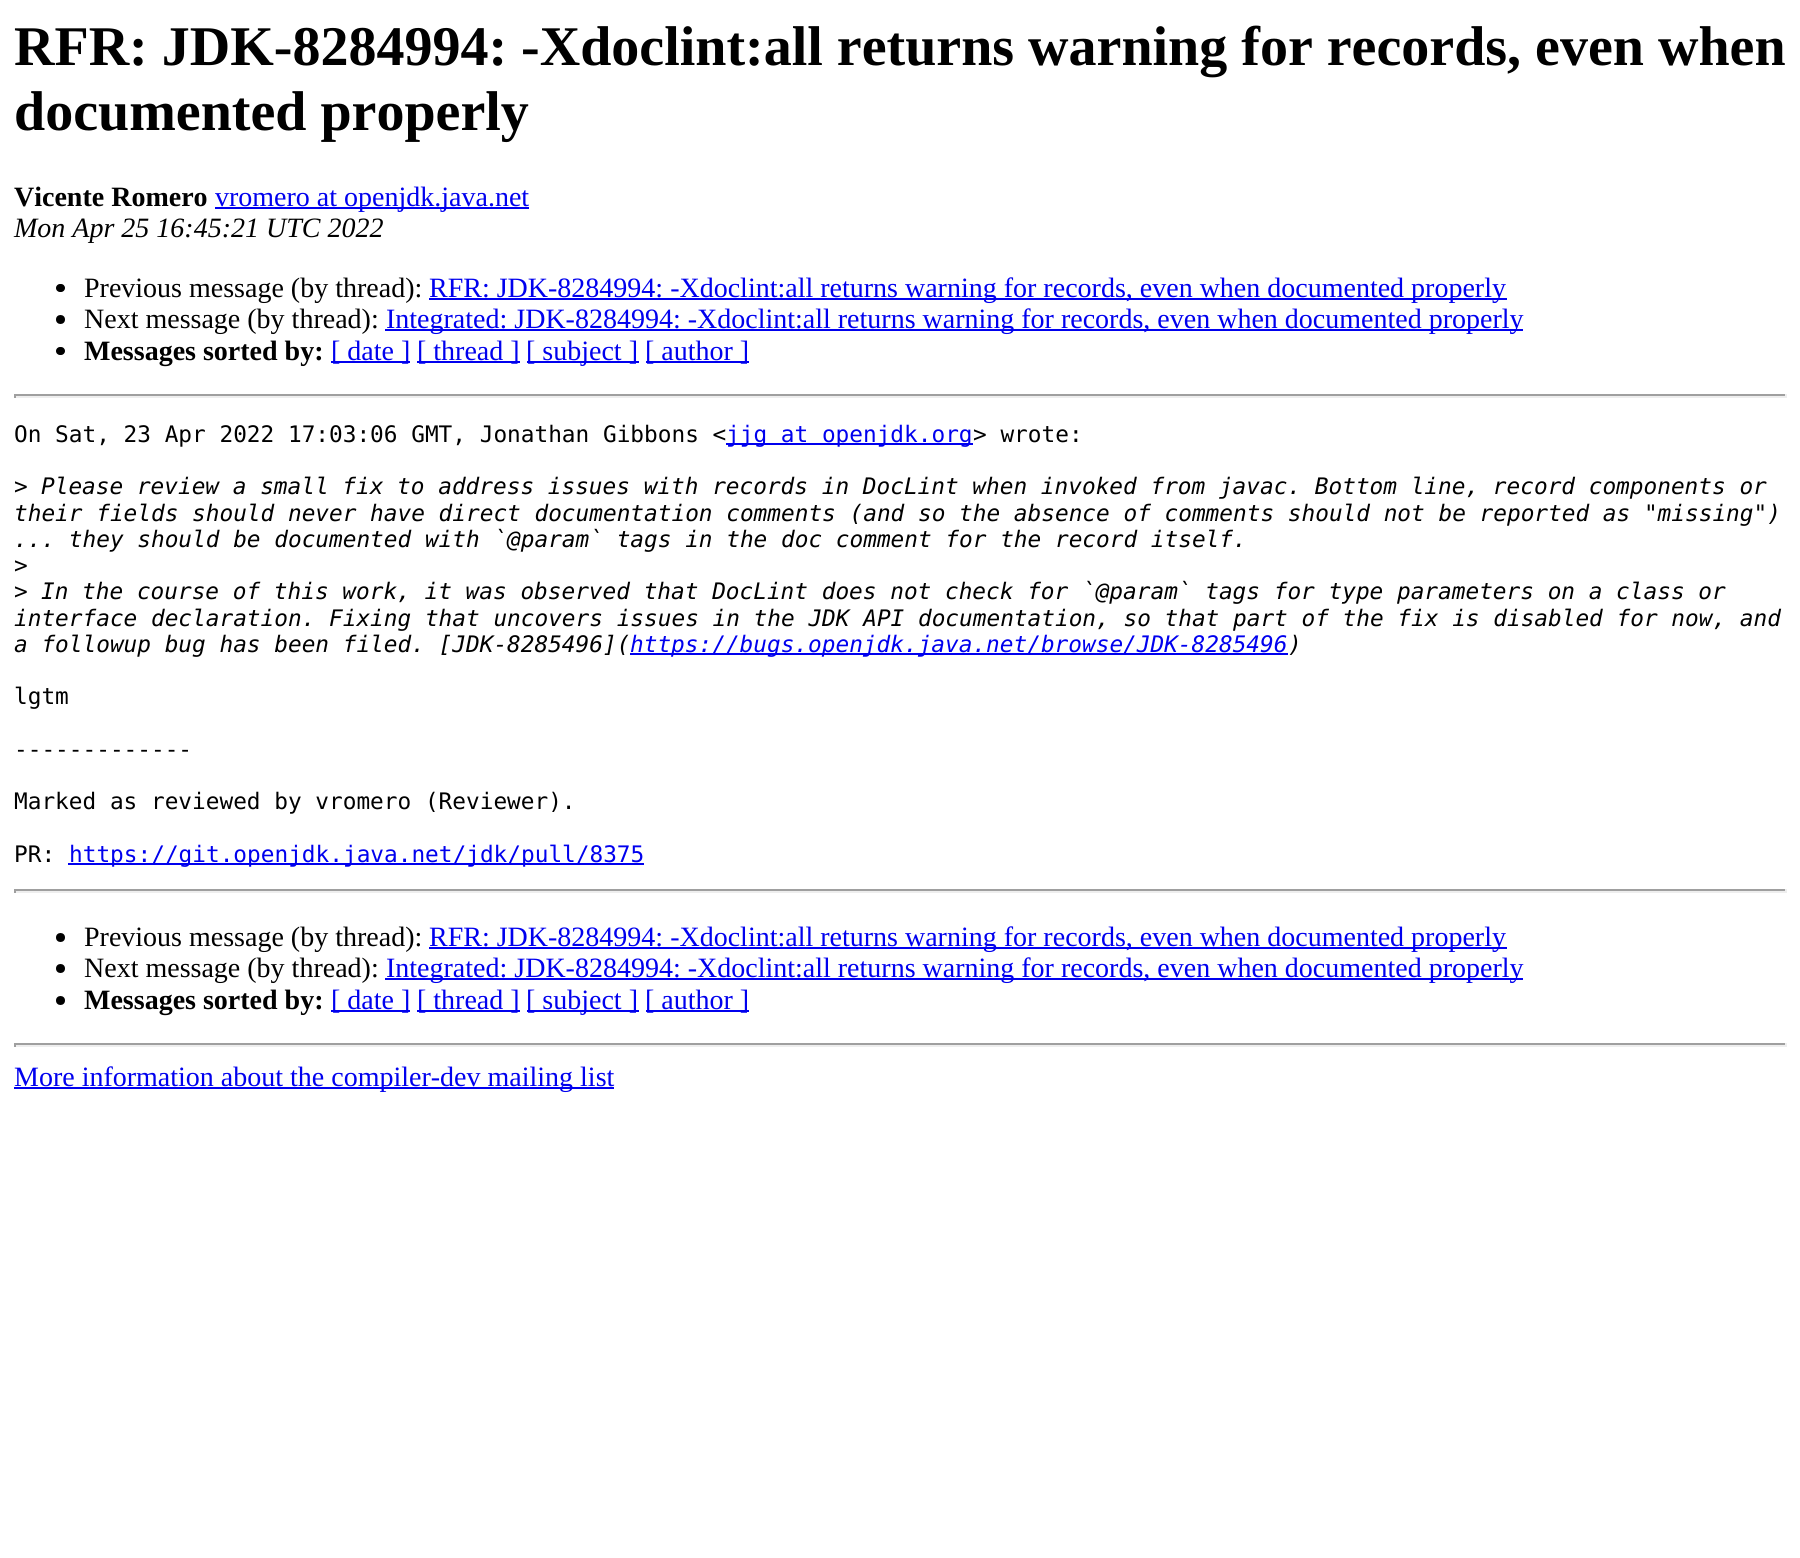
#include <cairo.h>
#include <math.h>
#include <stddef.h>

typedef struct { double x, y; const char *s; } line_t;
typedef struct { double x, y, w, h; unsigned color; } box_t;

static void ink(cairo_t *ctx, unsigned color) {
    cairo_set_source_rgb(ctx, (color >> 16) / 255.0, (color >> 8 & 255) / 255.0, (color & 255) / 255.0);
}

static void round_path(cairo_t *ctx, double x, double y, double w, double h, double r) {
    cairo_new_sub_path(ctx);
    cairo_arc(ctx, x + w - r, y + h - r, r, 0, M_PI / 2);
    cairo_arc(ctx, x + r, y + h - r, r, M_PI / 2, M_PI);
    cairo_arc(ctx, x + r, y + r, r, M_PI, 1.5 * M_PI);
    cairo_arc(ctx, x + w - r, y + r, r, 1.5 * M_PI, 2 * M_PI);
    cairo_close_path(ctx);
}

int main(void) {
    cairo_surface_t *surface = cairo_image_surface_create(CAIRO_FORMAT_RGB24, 1800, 1558);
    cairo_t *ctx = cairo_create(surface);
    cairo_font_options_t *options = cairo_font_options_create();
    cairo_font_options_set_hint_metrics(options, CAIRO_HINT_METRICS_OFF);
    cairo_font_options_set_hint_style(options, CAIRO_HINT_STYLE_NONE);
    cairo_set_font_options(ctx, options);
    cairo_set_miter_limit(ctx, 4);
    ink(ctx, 0xFFFFFF);
    cairo_paint(ctx);
    cairo_select_font_face(ctx, "Liberation Serif", CAIRO_FONT_SLANT_NORMAL, CAIRO_FONT_WEIGHT_BOLD);
    cairo_set_font_size(ctx, 56);
    ink(ctx, 0x000000);
    cairo_move_to(ctx, 14, 65);
    cairo_show_text(ctx, "RFR: JDK-8284994: -Xdoclint:all returns warning for records, even when");
    cairo_move_to(ctx, 14, 130);
    cairo_show_text(ctx, "documented properly");
    cairo_set_font_size(ctx, 28);
    cairo_move_to(ctx, 14, 206);
    cairo_show_text(ctx, "Vicente Romero");
    ink(ctx, 0x0000EE);
    cairo_rectangle(ctx, 215, 207, 314, 2);
    cairo_fill(ctx);
    cairo_select_font_face(ctx, "Liberation Serif", CAIRO_FONT_SLANT_NORMAL, CAIRO_FONT_WEIGHT_NORMAL);
    cairo_move_to(ctx, 215, 206);
    cairo_show_text(ctx, "vromero at openjdk.java.net");
    cairo_select_font_face(ctx, "Liberation Serif", CAIRO_FONT_SLANT_ITALIC, CAIRO_FONT_WEIGHT_NORMAL);
    ink(ctx, 0x000000);
    cairo_move_to(ctx, 14, 237);
    cairo_show_text(ctx, "Mon Apr 25 16:45:21 UTC 2022");
    round_path(ctx, 56, 284, 9, 8, 4);
    cairo_fill(ctx);
    cairo_select_font_face(ctx, "Liberation Serif", CAIRO_FONT_SLANT_NORMAL, CAIRO_FONT_WEIGHT_NORMAL);
    cairo_move_to(ctx, 84, 297);
    cairo_show_text(ctx, "Previous message (by thread):");
    ink(ctx, 0x0000EE);
    cairo_rectangle(ctx, 429, 298, 1078, 2);
    cairo_fill(ctx);
    cairo_move_to(ctx, 429, 297);
    cairo_show_text(ctx, "RFR: JDK-8284994: -Xdoclint:all returns warning for records, even when documented properly");
    ink(ctx, 0x000000);
    cairo_new_path(ctx);
    cairo_arc(ctx, 60.5, 319.5, 4.5, 0, 2 * M_PI);
    cairo_fill(ctx);
    cairo_move_to(ctx, 84, 328);
    cairo_show_text(ctx, "Next message (by thread):");
    ink(ctx, 0x0000EE);
    cairo_rectangle(ctx, 385, 329, 1138, 2);
    cairo_fill(ctx);
    cairo_move_to(ctx, 386, 328);
    cairo_show_text(ctx, "Integrated: JDK-8284994: -Xdoclint:all returns warning for records, even when documented properly");
    ink(ctx, 0x000000);
    round_path(ctx, 56, 347, 9, 8, 4);
    cairo_fill(ctx);
    cairo_select_font_face(ctx, "Liberation Serif", CAIRO_FONT_SLANT_NORMAL, CAIRO_FONT_WEIGHT_BOLD);
    cairo_move_to(ctx, 84, 360);
    cairo_show_text(ctx, "Messages sorted by:");
    ink(ctx, 0x0000EE);
    cairo_rectangle(ctx, 331, 361, 79, 2);
    cairo_fill(ctx);
    cairo_select_font_face(ctx, "Liberation Serif", CAIRO_FONT_SLANT_NORMAL, CAIRO_FONT_WEIGHT_NORMAL);
    cairo_move_to(ctx, 331, 360);
    cairo_show_text(ctx, "[ date ]");
    cairo_rectangle(ctx, 417, 361, 103, 2);
    cairo_fill(ctx);
    cairo_move_to(ctx, 417, 360);
    cairo_show_text(ctx, "[ thread ]");
    cairo_rectangle(ctx, 527, 361, 112, 2);
    cairo_fill(ctx);
    cairo_move_to(ctx, 526, 360);
    cairo_show_text(ctx, "[ subject ]");
    cairo_rectangle(ctx, 646, 361, 103, 2);
    cairo_fill(ctx);
    cairo_move_to(ctx, 645, 360);
    cairo_show_text(ctx, "[ author ]");
    {
        static const box_t items[] = {
            {14, 394, 1773, 2, 0x9F9F9F},
            {1785, 394, 2, 4, 0xEEEEEE},
            {14, 396, 1773, 2, 0xEEEEEE},
            {14, 394, 2, 4, 0x9F9F9F},
        };
        for (size_t i = 0; i < sizeof items / sizeof *items; i++) {
            ink(ctx, items[i].color);
            cairo_rectangle(ctx, items[i].x, items[i].y, items[i].w, items[i].h);
            cairo_fill(ctx);
        }
    }
    cairo_select_font_face(ctx, "DejaVu Sans Mono", CAIRO_FONT_SLANT_NORMAL, CAIRO_FONT_WEIGHT_NORMAL);
    cairo_set_font_size(ctx, 22.75);
    ink(ctx, 0x000000);
    cairo_move_to(ctx, 14, 442);
    cairo_show_text(ctx, "On Sat, 23 Apr 2022 17:03:06 GMT, Jonathan Gibbons <");
    ink(ctx, 0x0000EE);
    cairo_rectangle(ctx, 726, 443, 247, 2);
    cairo_fill(ctx);
    cairo_move_to(ctx, 726, 442);
    cairo_show_text(ctx, "jjg at openjdk.org");
    ink(ctx, 0x000000);
    cairo_move_to(ctx, 973, 442);
    cairo_show_text(ctx, "> wrote:");
    cairo_move_to(ctx, 14, 494);
    cairo_show_text(ctx, ">");
    cairo_select_font_face(ctx, "DejaVu Sans Mono", CAIRO_FONT_SLANT_ITALIC, CAIRO_FONT_WEIGHT_NORMAL);
    {
        static const line_t items[] = {
            {41, 494, "Please review a small fix to address issues with records in DocLint when invoked from javac. Bottom line, record components or"},
            {14, 521, "their fields should never have direct documentation comments (and so the absence of comments should not be reported as \"missing\")"},
            {14, 547, "... they should be documented with `@param` tags in the doc comment for the record itself."},
        };
        for (size_t i = 0; i < sizeof items / sizeof *items; i++) {
            cairo_move_to(ctx, items[i].x, items[i].y);
            cairo_show_text(ctx, items[i].s);
        }
    }
    cairo_select_font_face(ctx, "DejaVu Sans Mono", CAIRO_FONT_SLANT_NORMAL, CAIRO_FONT_WEIGHT_NORMAL);
    cairo_move_to(ctx, 14, 573);
    cairo_show_text(ctx, ">");
    cairo_move_to(ctx, 14, 599);
    cairo_show_text(ctx, ">");
    cairo_select_font_face(ctx, "DejaVu Sans Mono", CAIRO_FONT_SLANT_ITALIC, CAIRO_FONT_WEIGHT_NORMAL);
    {
        static const line_t items[] = {
            {41, 599, "In the course of this work, it was observed that DocLint does not check for `@param` tags for type parameters on a class or"},
            {14, 626, "interface declaration. Fixing that uncovers issues in the JDK API documentation, so that part of the fix is disabled for now, and"},
            {14, 652, "a followup bug has been filed. [JDK-8285496]("},
        };
        for (size_t i = 0; i < sizeof items / sizeof *items; i++) {
            cairo_move_to(ctx, items[i].x, items[i].y);
            cairo_show_text(ctx, items[i].s);
        }
    }
    ink(ctx, 0x0000EE);
    cairo_rectangle(ctx, 630, 653, 658, 2);
    cairo_fill(ctx);
    cairo_move_to(ctx, 630, 652);
    cairo_show_text(ctx, "https://bugs.openjdk.java.net/browse/JDK-8285496");
    ink(ctx, 0x000000);
    cairo_move_to(ctx, 1288, 652);
    cairo_show_text(ctx, ")");
    cairo_select_font_face(ctx, "DejaVu Sans Mono", CAIRO_FONT_SLANT_NORMAL, CAIRO_FONT_WEIGHT_NORMAL);
    {
        static const line_t items[] = {
            {14, 704, "lgtm"},
            {14, 757, "-------------"},
            {14, 809, "Marked as reviewed by vromero (Reviewer)."},
            {14, 862, "PR:"},
        };
        for (size_t i = 0; i < sizeof items / sizeof *items; i++) {
            cairo_move_to(ctx, items[i].x, items[i].y);
            cairo_show_text(ctx, items[i].s);
        }
    }
    ink(ctx, 0x0000EE);
    cairo_rectangle(ctx, 68, 863, 576, 2);
    cairo_fill(ctx);
    cairo_move_to(ctx, 69, 862);
    cairo_show_text(ctx, "https://git.openjdk.java.net/jdk/pull/8375");
    {
        static const box_t items[] = {
            {14, 889, 1773, 2, 0x9F9F9F},
            {1785, 889, 2, 4, 0xEEEEEE},
            {14, 891, 1773, 2, 0xEEEEEE},
            {14, 889, 2, 4, 0x9F9F9F},
        };
        for (size_t i = 0; i < sizeof items / sizeof *items; i++) {
            ink(ctx, items[i].color);
            cairo_rectangle(ctx, items[i].x, items[i].y, items[i].w, items[i].h);
            cairo_fill(ctx);
        }
    }
    ink(ctx, 0x000000);
    cairo_new_path(ctx);
    cairo_arc(ctx, 60.5, 937.5, 4.5, 0, 2 * M_PI);
    cairo_fill(ctx);
    cairo_select_font_face(ctx, "Liberation Serif", CAIRO_FONT_SLANT_NORMAL, CAIRO_FONT_WEIGHT_NORMAL);
    cairo_set_font_size(ctx, 28);
    cairo_move_to(ctx, 84, 946);
    cairo_show_text(ctx, "Previous message (by thread):");
    ink(ctx, 0x0000EE);
    cairo_rectangle(ctx, 429, 947, 1078, 2);
    cairo_fill(ctx);
    cairo_move_to(ctx, 429, 946);
    cairo_show_text(ctx, "RFR: JDK-8284994: -Xdoclint:all returns warning for records, even when documented properly");
    ink(ctx, 0x000000);
    cairo_new_path(ctx);
    cairo_arc(ctx, 60.5, 968.5, 4.5, 0, 2 * M_PI);
    cairo_fill(ctx);
    cairo_move_to(ctx, 84, 977);
    cairo_show_text(ctx, "Next message (by thread):");
    ink(ctx, 0x0000EE);
    cairo_rectangle(ctx, 385, 978, 1138, 2);
    cairo_fill(ctx);
    cairo_move_to(ctx, 386, 977);
    cairo_show_text(ctx, "Integrated: JDK-8284994: -Xdoclint:all returns warning for records, even when documented properly");
    ink(ctx, 0x000000);
    cairo_new_path(ctx);
    cairo_arc(ctx, 60.5, 1000.5, 4.5, 0, 2 * M_PI);
    cairo_fill(ctx);
    cairo_select_font_face(ctx, "Liberation Serif", CAIRO_FONT_SLANT_NORMAL, CAIRO_FONT_WEIGHT_BOLD);
    cairo_move_to(ctx, 84, 1009);
    cairo_show_text(ctx, "Messages sorted by:");
    ink(ctx, 0x0000EE);
    cairo_rectangle(ctx, 331, 1010, 79, 2);
    cairo_fill(ctx);
    cairo_select_font_face(ctx, "Liberation Serif", CAIRO_FONT_SLANT_NORMAL, CAIRO_FONT_WEIGHT_NORMAL);
    cairo_move_to(ctx, 331, 1009);
    cairo_show_text(ctx, "[ date ]");
    cairo_rectangle(ctx, 417, 1010, 103, 2);
    cairo_fill(ctx);
    cairo_move_to(ctx, 417, 1009);
    cairo_show_text(ctx, "[ thread ]");
    cairo_rectangle(ctx, 527, 1010, 112, 2);
    cairo_fill(ctx);
    cairo_move_to(ctx, 526, 1009);
    cairo_show_text(ctx, "[ subject ]");
    cairo_rectangle(ctx, 646, 1010, 103, 2);
    cairo_fill(ctx);
    cairo_move_to(ctx, 645, 1009);
    cairo_show_text(ctx, "[ author ]");
    {
        static const box_t items[] = {
            {14, 1043, 1773, 2, 0x9F9F9F},
            {1785, 1043, 2, 4, 0xEEEEEE},
            {14, 1045, 1773, 2, 0xEEEEEE},
            {14, 1043, 2, 4, 0x9F9F9F},
            {14, 1087, 600, 2, 0x0000EE},
        };
        for (size_t i = 0; i < sizeof items / sizeof *items; i++) {
            ink(ctx, items[i].color);
            cairo_rectangle(ctx, items[i].x, items[i].y, items[i].w, items[i].h);
            cairo_fill(ctx);
        }
    }
    cairo_move_to(ctx, 14, 1086);
    cairo_show_text(ctx, "More information about the compiler-dev mailing list");
    cairo_surface_write_to_png(surface, "image.png");
    cairo_font_options_destroy(options);
    cairo_destroy(ctx);
    cairo_surface_destroy(surface);
    return 0;
}
